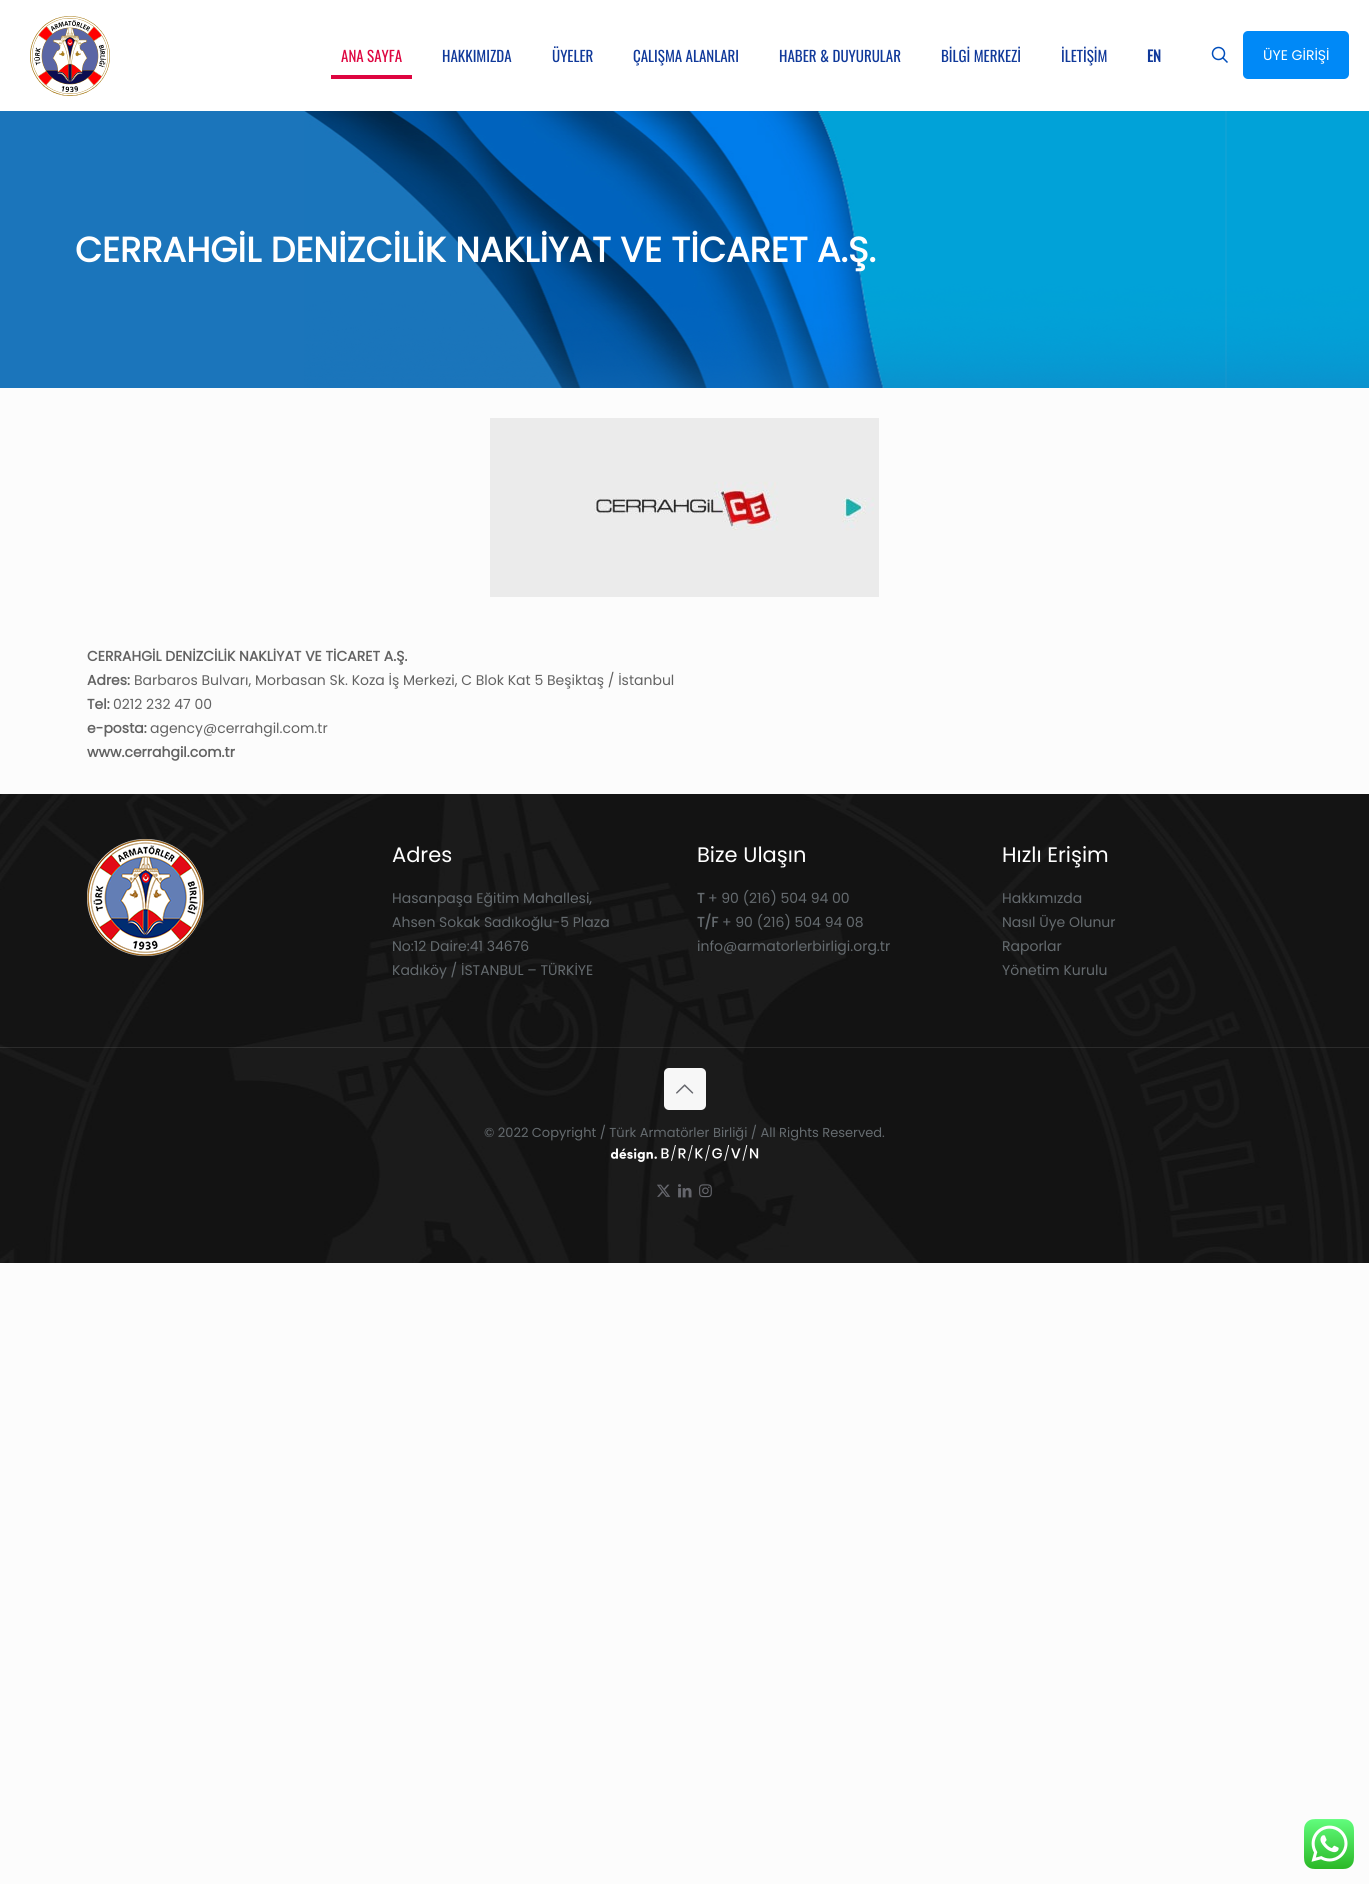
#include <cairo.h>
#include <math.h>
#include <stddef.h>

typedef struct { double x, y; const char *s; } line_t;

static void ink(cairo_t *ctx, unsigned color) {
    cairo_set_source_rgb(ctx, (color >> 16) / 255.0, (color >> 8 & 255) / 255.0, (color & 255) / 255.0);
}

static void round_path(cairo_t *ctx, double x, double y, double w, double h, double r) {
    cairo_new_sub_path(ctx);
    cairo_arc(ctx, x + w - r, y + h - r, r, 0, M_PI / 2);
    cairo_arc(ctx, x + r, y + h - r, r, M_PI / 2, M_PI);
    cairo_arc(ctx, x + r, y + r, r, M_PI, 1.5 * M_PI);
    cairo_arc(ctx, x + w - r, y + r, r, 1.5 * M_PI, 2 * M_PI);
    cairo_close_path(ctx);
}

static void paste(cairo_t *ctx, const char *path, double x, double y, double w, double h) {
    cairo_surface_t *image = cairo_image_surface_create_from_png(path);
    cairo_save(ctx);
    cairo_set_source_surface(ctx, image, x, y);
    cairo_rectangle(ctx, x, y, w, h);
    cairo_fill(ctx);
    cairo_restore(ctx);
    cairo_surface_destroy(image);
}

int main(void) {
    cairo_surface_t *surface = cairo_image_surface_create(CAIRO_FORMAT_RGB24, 1369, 1884);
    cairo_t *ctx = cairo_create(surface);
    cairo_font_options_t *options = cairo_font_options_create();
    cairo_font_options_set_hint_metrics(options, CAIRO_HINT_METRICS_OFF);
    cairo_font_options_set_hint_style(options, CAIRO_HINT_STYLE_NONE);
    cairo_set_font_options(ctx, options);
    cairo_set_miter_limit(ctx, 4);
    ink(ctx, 0xFCFCFC);
    cairo_paint(ctx);
    ink(ctx, 0xFFFFFF);
    cairo_rectangle(ctx, 0, 0, 1369, 111);
    cairo_fill(ctx);
    paste(ctx, "media/1.png", 30, 16, 80, 80);
    cairo_select_font_face(ctx, "Oswald", CAIRO_FONT_SLANT_NORMAL, CAIRO_FONT_WEIGHT_NORMAL);
    cairo_set_font_size(ctx, 15);
    ink(ctx, 0xDE0540);
    cairo_move_to(ctx, 341, 62);
    cairo_show_text(ctx, "ANA SAYFA");
    cairo_rectangle(ctx, 331, 75, 81, 4);
    cairo_fill(ctx);
    ink(ctx, 0x10399A);
    {
        static const line_t items[] = {
            {442, 62, "HAKKIMIZDA"},
            {552, 62, "ÜYELER"},
            {633, 62, "ÇALIŞMA ALANLARI"},
            {779, 62, "HABER & DUYURULAR"},
            {941, 62, "BİLGİ MERKEZİ"},
            {1061, 62, "İLETİŞİM"},
        };
        for (size_t i = 0; i < sizeof items / sizeof *items; i++) {
            cairo_move_to(ctx, items[i].x, items[i].y);
            cairo_show_text(ctx, items[i].s);
        }
    }
    cairo_select_font_face(ctx, "Oswald", CAIRO_FONT_SLANT_NORMAL, CAIRO_FONT_WEIGHT_BOLD);
    cairo_move_to(ctx, 1147, 62);
    cairo_show_text(ctx, "EN");
    cairo_new_path(ctx);
    cairo_arc(ctx, 1218.5, 53.5, 6, 0, 2 * M_PI);
    ink(ctx, 0x004EBC);
    cairo_set_line_width(ctx, 1.5);
    cairo_stroke(ctx);
    cairo_new_path(ctx);
    cairo_move_to(ctx, 1222.5, 57.5);
    cairo_line_to(ctx, 1227.5, 62.5);
    cairo_stroke(ctx);
    ink(ctx, 0x0089F7);
    round_path(ctx, 1243, 31, 106, 48, 5);
    cairo_fill(ctx);
    cairo_select_font_face(ctx, "Poppins", CAIRO_FONT_SLANT_NORMAL, CAIRO_FONT_WEIGHT_NORMAL);
    cairo_set_font_size(ctx, 14);
    ink(ctx, 0xFFFFFF);
    cairo_move_to(ctx, 1263, 60);
    cairo_show_text(ctx, "ÜYE GİRİŞİ");
    ink(ctx, 0x1B75BB);
    cairo_rectangle(ctx, 0, 111, 1369, 277);
    cairo_fill(ctx);
    paste(ctx, "media/2.png", 304, 111, 1065, 277);
    cairo_select_font_face(ctx, "Poppins", CAIRO_FONT_SLANT_NORMAL, CAIRO_FONT_WEIGHT_BOLD);
    cairo_set_font_size(ctx, 35);
    ink(ctx, 0xFFFFFF);
    cairo_move_to(ctx, 75, 262);
    cairo_show_text(ctx, "CERRAHGİL DENİZCİLİK NAKLİYAT VE TİCARET A.Ş.");
    paste(ctx, "media/3.png", 490, 418, 389, 179);
    cairo_set_font_size(ctx, 14);
    ink(ctx, 0x626262);
    cairo_move_to(ctx, 87, 661);
    cairo_show_text(ctx, "CERRAHGİL DENİZCİLİK NAKLİYAT VE TİCARET A.Ş.");
    cairo_move_to(ctx, 87, 685);
    cairo_show_text(ctx, "Adres:");
    cairo_select_font_face(ctx, "Poppins", CAIRO_FONT_SLANT_NORMAL, CAIRO_FONT_WEIGHT_NORMAL);
    cairo_move_to(ctx, 134, 685);
    cairo_show_text(ctx, "Barbaros Bulvarı, Morbasan Sk. Koza İş Merkezi, C Blok Kat 5 Beşiktaş / İstanbul");
    cairo_select_font_face(ctx, "Poppins", CAIRO_FONT_SLANT_NORMAL, CAIRO_FONT_WEIGHT_BOLD);
    cairo_move_to(ctx, 87, 709);
    cairo_show_text(ctx, "Tel:");
    cairo_select_font_face(ctx, "Poppins", CAIRO_FONT_SLANT_NORMAL, CAIRO_FONT_WEIGHT_NORMAL);
    cairo_move_to(ctx, 113, 709);
    cairo_show_text(ctx, "0212 232 47 00");
    cairo_select_font_face(ctx, "Poppins", CAIRO_FONT_SLANT_NORMAL, CAIRO_FONT_WEIGHT_BOLD);
    cairo_move_to(ctx, 87, 733);
    cairo_show_text(ctx, "e-posta:");
    cairo_select_font_face(ctx, "Poppins", CAIRO_FONT_SLANT_NORMAL, CAIRO_FONT_WEIGHT_NORMAL);
    cairo_move_to(ctx, 150, 733);
    cairo_show_text(ctx, "agency@cerrahgil.com.tr");
    cairo_select_font_face(ctx, "Poppins", CAIRO_FONT_SLANT_NORMAL, CAIRO_FONT_WEIGHT_BOLD);
    cairo_move_to(ctx, 87, 757);
    cairo_show_text(ctx, "www.cerrahgil.com.tr");
    paste(ctx, "media/4.png", 0, 794, 1369, 469);
    paste(ctx, "media/5.png", 87, 839, 117, 117);
    cairo_select_font_face(ctx, "Poppins", CAIRO_FONT_SLANT_NORMAL, CAIRO_FONT_WEIGHT_NORMAL);
    cairo_set_font_size(ctx, 21);
    ink(ctx, 0xFFFFFF);
    cairo_move_to(ctx, 392, 862);
    cairo_show_text(ctx, "Adres");
    cairo_set_font_size(ctx, 14);
    ink(ctx, 0x656B6F);
    {
        static const line_t items[] = {
            {392, 903, "Hasanpaşa Eğitim Mahallesi,"},
            {392, 927, "Ahsen Sokak Sadıkoğlu-5 Plaza"},
            {392, 951, "No:12 Daire:41 34676"},
            {392, 975, "Kadıköy / İSTANBUL – TÜRKİYE"},
        };
        for (size_t i = 0; i < sizeof items / sizeof *items; i++) {
            cairo_move_to(ctx, items[i].x, items[i].y);
            cairo_show_text(ctx, items[i].s);
        }
    }
    cairo_set_font_size(ctx, 21);
    ink(ctx, 0xFFFFFF);
    cairo_move_to(ctx, 697, 862);
    cairo_show_text(ctx, "Bize Ulaşın");
    cairo_select_font_face(ctx, "Poppins", CAIRO_FONT_SLANT_NORMAL, CAIRO_FONT_WEIGHT_BOLD);
    cairo_set_font_size(ctx, 14);
    ink(ctx, 0x656B6F);
    cairo_move_to(ctx, 697, 903);
    cairo_show_text(ctx, "T");
    cairo_select_font_face(ctx, "Poppins", CAIRO_FONT_SLANT_NORMAL, CAIRO_FONT_WEIGHT_NORMAL);
    cairo_move_to(ctx, 708, 903);
    cairo_show_text(ctx, "+ 90 (216) 504 94 00");
    cairo_select_font_face(ctx, "Poppins", CAIRO_FONT_SLANT_NORMAL, CAIRO_FONT_WEIGHT_BOLD);
    cairo_move_to(ctx, 697, 927);
    cairo_show_text(ctx, "T/F");
    cairo_select_font_face(ctx, "Poppins", CAIRO_FONT_SLANT_NORMAL, CAIRO_FONT_WEIGHT_NORMAL);
    cairo_move_to(ctx, 722, 927);
    cairo_show_text(ctx, "+ 90 (216) 504 94 08");
    cairo_move_to(ctx, 697, 951);
    cairo_show_text(ctx, "info@armatorlerbirligi.org.tr");
    cairo_set_font_size(ctx, 21);
    ink(ctx, 0xFFFFFF);
    cairo_move_to(ctx, 1002, 862);
    cairo_show_text(ctx, "Hızlı Erişim");
    cairo_set_font_size(ctx, 14);
    ink(ctx, 0x656B6F);
    {
        static const line_t items[] = {
            {1002, 903, "Hakkımızda"},
            {1002, 927, "Nasıl Üye Olunur"},
            {1002, 951, "Raporlar"},
            {1002, 975, "Yönetim Kurulu"},
        };
        for (size_t i = 0; i < sizeof items / sizeof *items; i++) {
            cairo_move_to(ctx, items[i].x, items[i].y);
            cairo_show_text(ctx, items[i].s);
        }
    }
    cairo_set_source_rgba(ctx, 1, 1, 1, 0.1);
    cairo_rectangle(ctx, 0, 1047, 1369, 1);
    cairo_fill(ctx);
    ink(ctx, 0xF7F7F7);
    round_path(ctx, 664, 1068, 42, 42, 5);
    cairo_fill(ctx);
    paste(ctx, "media/6.png", 676, 1084, 18, 10);
    cairo_set_font_size(ctx, 13);
    ink(ctx, 0x656B6F);
    cairo_move_to(ctx, 484, 1137);
    cairo_show_text(ctx, "© 2022 Copyright / Türk Armatörler Birliği / All Rights Reserved.");
    paste(ctx, "media/7.png", 610, 1145, 149, 17);
    paste(ctx, "media/8.png", 657, 1184, 14, 13);
    paste(ctx, "media/9.png", 678, 1184, 14, 14);
    paste(ctx, "media/10.png", 699, 1184, 13, 14);
    paste(ctx, "media/11.png", 1304, 1819, 50, 50);
    cairo_surface_write_to_png(surface, "image.png");
    cairo_font_options_destroy(options);
    cairo_destroy(ctx);
    cairo_surface_destroy(surface);
    return 0;
}
